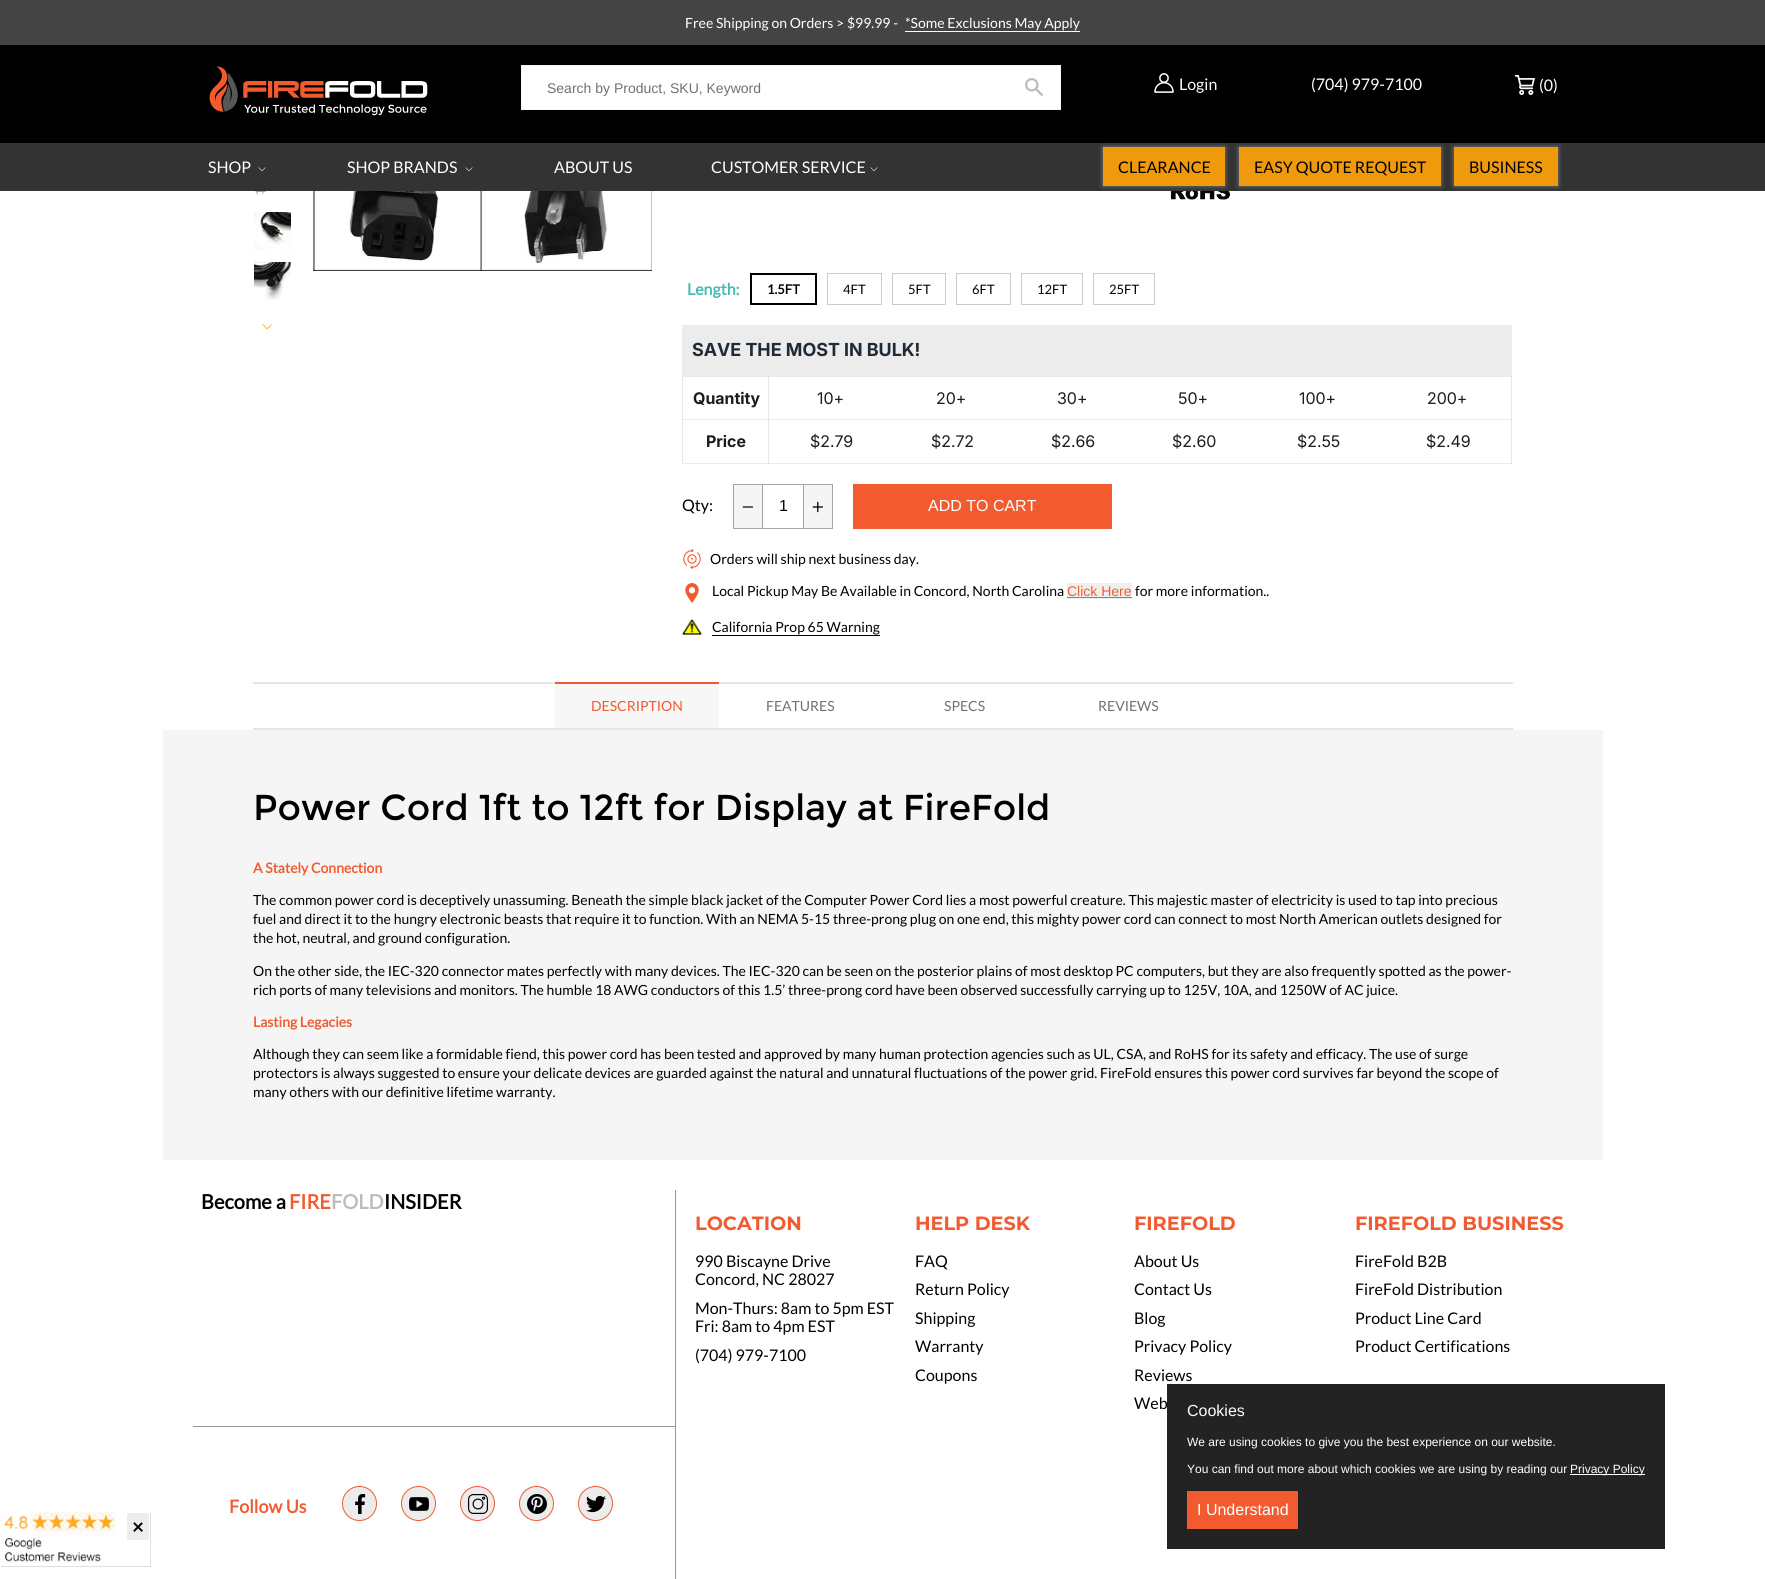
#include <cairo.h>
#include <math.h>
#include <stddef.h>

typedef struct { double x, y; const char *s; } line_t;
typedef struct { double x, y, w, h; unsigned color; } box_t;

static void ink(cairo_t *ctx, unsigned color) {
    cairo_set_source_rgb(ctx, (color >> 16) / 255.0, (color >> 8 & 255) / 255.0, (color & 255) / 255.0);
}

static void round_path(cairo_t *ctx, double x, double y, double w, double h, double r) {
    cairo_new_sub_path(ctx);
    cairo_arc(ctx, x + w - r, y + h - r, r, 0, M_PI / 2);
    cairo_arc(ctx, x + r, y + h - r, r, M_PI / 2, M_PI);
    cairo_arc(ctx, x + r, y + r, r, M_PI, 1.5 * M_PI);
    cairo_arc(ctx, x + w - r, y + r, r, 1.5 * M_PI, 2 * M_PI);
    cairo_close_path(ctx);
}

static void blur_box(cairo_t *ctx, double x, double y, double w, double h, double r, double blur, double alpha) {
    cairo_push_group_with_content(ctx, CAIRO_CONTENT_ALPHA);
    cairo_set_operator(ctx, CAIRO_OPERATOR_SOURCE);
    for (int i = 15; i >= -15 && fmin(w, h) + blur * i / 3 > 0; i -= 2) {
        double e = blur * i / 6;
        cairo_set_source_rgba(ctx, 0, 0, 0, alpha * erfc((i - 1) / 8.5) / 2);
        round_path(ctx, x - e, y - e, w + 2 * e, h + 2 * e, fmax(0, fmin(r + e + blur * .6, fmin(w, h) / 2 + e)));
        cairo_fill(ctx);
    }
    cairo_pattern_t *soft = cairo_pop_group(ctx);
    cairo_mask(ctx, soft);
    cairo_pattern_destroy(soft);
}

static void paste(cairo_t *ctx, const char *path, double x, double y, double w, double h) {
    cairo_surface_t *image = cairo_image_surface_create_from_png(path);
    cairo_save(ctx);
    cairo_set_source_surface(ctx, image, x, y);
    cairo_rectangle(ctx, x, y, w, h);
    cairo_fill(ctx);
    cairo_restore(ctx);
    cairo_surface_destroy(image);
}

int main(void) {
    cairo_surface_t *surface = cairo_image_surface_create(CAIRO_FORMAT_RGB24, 1765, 1579);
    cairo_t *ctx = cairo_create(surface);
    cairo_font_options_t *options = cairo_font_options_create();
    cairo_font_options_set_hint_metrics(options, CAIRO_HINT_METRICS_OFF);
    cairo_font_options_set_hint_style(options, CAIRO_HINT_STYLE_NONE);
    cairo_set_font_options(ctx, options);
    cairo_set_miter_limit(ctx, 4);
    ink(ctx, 0xFFFFFF);
    cairo_paint(ctx);
    ink(ctx, 0x000000);
    cairo_rectangle(ctx, 0, 45, 1765, 98);
    cairo_fill(ctx);
    ink(ctx, 0x444444);
    cairo_rectangle(ctx, 0, 0, 1765, 45);
    cairo_fill(ctx);
    cairo_select_font_face(ctx, "Lato", CAIRO_FONT_SLANT_NORMAL, CAIRO_FONT_WEIGHT_NORMAL);
    cairo_set_font_size(ctx, 14);
    ink(ctx, 0xFFFFFF);
    cairo_move_to(ctx, 685, 28);
    cairo_show_text(ctx, "Free Shipping on Orders > $99.99 -");
    cairo_move_to(ctx, 905, 28);
    cairo_show_text(ctx, "*Some Exclusions May Apply");
    cairo_rectangle(ctx, 905, 31, 175, 1);
    cairo_fill(ctx);
    paste(ctx, "media/1.png", 209, 66, 219, 50);
    cairo_rectangle(ctx, 521.5, 65.5, 539, 44);
    cairo_fill_preserve(ctx);
    ink(ctx, 0xF6F6F6);
    cairo_set_line_width(ctx, 1);
    cairo_stroke(ctx);
    cairo_select_font_face(ctx, "Liberation Sans", CAIRO_FONT_SLANT_NORMAL, CAIRO_FONT_WEIGHT_NORMAL);
    ink(ctx, 0x717171);
    cairo_move_to(ctx, 547, 93);
    cairo_show_text(ctx, "Search by Product, SKU, Keyword");
    paste(ctx, "media/2.png", 1025, 78, 18, 18);
    paste(ctx, "media/3.png", 1154, 73, 20, 20);
    cairo_select_font_face(ctx, "Lato", CAIRO_FONT_SLANT_NORMAL, CAIRO_FONT_WEIGHT_NORMAL);
    cairo_set_font_size(ctx, 16);
    ink(ctx, 0xFFFFFF);
    cairo_move_to(ctx, 1179, 90);
    cairo_show_text(ctx, "Login");
    cairo_move_to(ctx, 1311, 90);
    cairo_show_text(ctx, "(704) 979-7100");
    paste(ctx, "media/4.png", 1515, 75, 20, 20);
    cairo_move_to(ctx, 1539, 91);
    cairo_show_text(ctx, "(0)");
    ink(ctx, 0x333333);
    cairo_rectangle(ctx, 0, 143, 1765, 48);
    cairo_fill(ctx);
    ink(ctx, 0xFFFFFF);
    cairo_move_to(ctx, 208, 173);
    cairo_show_text(ctx, "SHOP");
    paste(ctx, "media/5.png", 258, 167, 8, 5);
    cairo_move_to(ctx, 347, 173);
    cairo_show_text(ctx, "SHOP BRANDS");
    paste(ctx, "media/5.png", 465, 167, 8, 5);
    cairo_move_to(ctx, 554, 173);
    cairo_show_text(ctx, "ABOUT US");
    cairo_move_to(ctx, 711, 173);
    cairo_show_text(ctx, "CUSTOMER SERVICE");
    paste(ctx, "media/5.png", 870, 167, 8, 5);
    paste(ctx, "media/11.png", 1170, 191, 61, 9);
    ink(ctx, 0x7C7C7C);
    blur_box(ctx, 1103, 147, 122, 39, 0, 2.5, 1);
    ink(ctx, 0xEF9A0D);
    cairo_rectangle(ctx, 1103, 147, 122, 39);
    cairo_fill(ctx);
    ink(ctx, 0x000000);
    cairo_move_to(ctx, 1118, 173);
    cairo_show_text(ctx, "CLEARANCE");
    ink(ctx, 0x7C7C7C);
    blur_box(ctx, 1239, 147, 202, 39, 0, 2.5, 1);
    ink(ctx, 0xEF9A0D);
    cairo_rectangle(ctx, 1239, 147, 202, 39);
    cairo_fill(ctx);
    ink(ctx, 0x000000);
    cairo_move_to(ctx, 1254, 173);
    cairo_show_text(ctx, "EASY QUOTE REQUEST");
    ink(ctx, 0x7C7C7C);
    blur_box(ctx, 1454, 147, 104, 39, 0, 2.5, 1);
    ink(ctx, 0xEF9A0D);
    cairo_rectangle(ctx, 1454, 147, 104, 39);
    cairo_fill(ctx);
    ink(ctx, 0x000000);
    cairo_move_to(ctx, 1469, 173);
    cairo_show_text(ctx, "BUSINESS");
    paste(ctx, "media/6.png", 254, 191, 37, 4);
    paste(ctx, "media/7.png", 254, 212, 37, 38);
    paste(ctx, "media/8.png", 254, 262, 37, 38);
    paste(ctx, "media/9.png", 262, 323, 10, 7);
    paste(ctx, "media/10.png", 313, 191, 339, 80);
    cairo_select_font_face(ctx, "Lato", CAIRO_FONT_SLANT_NORMAL, CAIRO_FONT_WEIGHT_BOLD);
    ink(ctx, 0x43BBB2);
    cairo_move_to(ctx, 687, 295);
    cairo_show_text(ctx, "Length:");
    cairo_rectangle(ctx, 751, 274, 65, 30);
    ink(ctx, 0x000000);
    cairo_set_line_width(ctx, 2);
    cairo_stroke(ctx);
    cairo_set_font_size(ctx, 13);
    cairo_move_to(ctx, 767, 294);
    cairo_show_text(ctx, "1.5FT");
    cairo_rectangle(ctx, 827.5, 273.5, 54, 31);
    ink(ctx, 0xCCCCCC);
    cairo_set_line_width(ctx, 1);
    cairo_stroke(ctx);
    cairo_select_font_face(ctx, "Lato", CAIRO_FONT_SLANT_NORMAL, CAIRO_FONT_WEIGHT_NORMAL);
    ink(ctx, 0x000000);
    cairo_move_to(ctx, 843, 294);
    cairo_show_text(ctx, "4FT");
    cairo_rectangle(ctx, 892.5, 273.5, 53, 31);
    ink(ctx, 0xCCCCCC);
    cairo_stroke(ctx);
    ink(ctx, 0x000000);
    cairo_move_to(ctx, 908, 294);
    cairo_show_text(ctx, "5FT");
    cairo_rectangle(ctx, 956.5, 273.5, 54, 31);
    ink(ctx, 0xCCCCCC);
    cairo_stroke(ctx);
    ink(ctx, 0x000000);
    cairo_move_to(ctx, 972, 294);
    cairo_show_text(ctx, "6FT");
    cairo_rectangle(ctx, 1021.5, 273.5, 61, 31);
    ink(ctx, 0xCCCCCC);
    cairo_stroke(ctx);
    ink(ctx, 0x000000);
    cairo_move_to(ctx, 1037, 294);
    cairo_show_text(ctx, "12FT");
    cairo_rectangle(ctx, 1093.5, 273.5, 61, 31);
    ink(ctx, 0xCCCCCC);
    cairo_stroke(ctx);
    ink(ctx, 0x000000);
    cairo_move_to(ctx, 1109, 294);
    cairo_show_text(ctx, "25FT");
    ink(ctx, 0xECECEC);
    cairo_rectangle(ctx, 682, 325, 830, 51);
    cairo_fill(ctx);
    cairo_select_font_face(ctx, "Inter", CAIRO_FONT_SLANT_NORMAL, CAIRO_FONT_WEIGHT_BOLD);
    cairo_set_font_size(ctx, 18);
    ink(ctx, 0x212B36);
    cairo_move_to(ctx, 692, 356);
    cairo_show_text(ctx, "SAVE THE MOST IN BULK!");
    {
        static const box_t items[] = {
            {682, 376, 830, 1, 0xE8E8E8},
            {1511, 376, 1, 88, 0xE8E8E8},
            {682, 376, 1, 88, 0xE8E8E8},
            {768, 377, 1, 87, 0xE8E8E8},
            {683, 419, 828, 1, 0xEBEBEB},
        };
        for (size_t i = 0; i < sizeof items / sizeof *items; i++) {
            ink(ctx, items[i].color);
            cairo_rectangle(ctx, items[i].x, items[i].y, items[i].w, items[i].h);
            cairo_fill(ctx);
        }
    }
    cairo_select_font_face(ctx, "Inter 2", CAIRO_FONT_SLANT_NORMAL, CAIRO_FONT_WEIGHT_BOLD);
    cairo_set_font_size(ctx, 16);
    ink(ctx, 0x1A1C1D);
    cairo_move_to(ctx, 693, 404);
    cairo_show_text(ctx, "Quantity");
    ink(ctx, 0xEBEBEB);
    cairo_rectangle(ctx, 683, 463, 828, 1);
    cairo_fill(ctx);
    ink(ctx, 0x1A1C1D);
    cairo_move_to(ctx, 706, 447);
    cairo_show_text(ctx, "Price");
    cairo_select_font_face(ctx, "Inter", CAIRO_FONT_SLANT_NORMAL, CAIRO_FONT_WEIGHT_NORMAL);
    {
        static const line_t items[] = {
            {817, 404, "10+"},
            {810, 447, "$2.79"},
            {936, 404, "20+"},
            {931, 447, "$2.72"},
            {1057, 404, "30+"},
            {1051, 447, "$2.66"},
            {1178, 404, "50+"},
            {1172, 447, "$2.60"},
            {1299, 404, "100+"},
            {1297, 447, "$2.55"},
            {1427, 404, "200+"},
            {1426, 447, "$2.49"},
        };
        for (size_t i = 0; i < sizeof items / sizeof *items; i++) {
            cairo_move_to(ctx, items[i].x, items[i].y);
            cairo_show_text(ctx, items[i].s);
        }
    }
    cairo_select_font_face(ctx, "Lato", CAIRO_FONT_SLANT_NORMAL, CAIRO_FONT_WEIGHT_NORMAL);
    ink(ctx, 0x000000);
    cairo_move_to(ctx, 682, 511);
    cairo_show_text(ctx, "Qty:");
    ink(ctx, 0xF5F5F5);
    cairo_rectangle(ctx, 733.5, 484.5, 29, 44);
    cairo_fill_preserve(ctx);
    ink(ctx, 0xA3A5AD);
    cairo_stroke(ctx);
    paste(ctx, "media/12.png", 742, 506, 12, 2);
    cairo_rectangle(ctx, 763, 484, 40, 1);
    cairo_fill(ctx);
    cairo_rectangle(ctx, 763, 528, 40, 1);
    cairo_fill(ctx);
    cairo_select_font_face(ctx, "Liberation Sans", CAIRO_FONT_SLANT_NORMAL, CAIRO_FONT_WEIGHT_NORMAL);
    ink(ctx, 0x000000);
    cairo_move_to(ctx, 779, 511);
    cairo_show_text(ctx, "1");
    ink(ctx, 0xF5F5F5);
    cairo_rectangle(ctx, 803.5, 484.5, 29, 44);
    cairo_fill_preserve(ctx);
    ink(ctx, 0xA3A5AD);
    cairo_stroke(ctx);
    paste(ctx, "media/13.png", 812, 501, 11, 12);
    ink(ctx, 0xF15B2F);
    cairo_rectangle(ctx, 853, 484, 259, 45);
    cairo_fill(ctx);
    ink(ctx, 0xFFFFFF);
    cairo_move_to(ctx, 928, 511);
    cairo_show_text(ctx, "ADD TO CART");
    paste(ctx, "media/14.png", 683, 549, 18, 20);
    cairo_select_font_face(ctx, "Lato", CAIRO_FONT_SLANT_NORMAL, CAIRO_FONT_WEIGHT_NORMAL);
    cairo_set_font_size(ctx, 14);
    ink(ctx, 0x000000);
    cairo_move_to(ctx, 710, 564);
    cairo_show_text(ctx, "Orders will ship next business day.");
    paste(ctx, "media/15.png", 685, 583, 14, 20);
    cairo_move_to(ctx, 712, 596);
    cairo_show_text(ctx, "Local Pickup May Be Available in Concord, North Carolina");
    ink(ctx, 0xEFEFEF);
    cairo_rectangle(ctx, 1067, 583, 65, 16);
    cairo_fill(ctx);
    cairo_select_font_face(ctx, "Liberation Sans", CAIRO_FONT_SLANT_NORMAL, CAIRO_FONT_WEIGHT_NORMAL);
    ink(ctx, 0xF15B2F);
    cairo_move_to(ctx, 1067, 596);
    cairo_show_text(ctx, "Click Here");
    cairo_rectangle(ctx, 1067, 597, 65, 1);
    cairo_fill(ctx);
    cairo_select_font_face(ctx, "Lato", CAIRO_FONT_SLANT_NORMAL, CAIRO_FONT_WEIGHT_NORMAL);
    ink(ctx, 0x000000);
    cairo_move_to(ctx, 1135, 596);
    cairo_show_text(ctx, "for more information..");
    paste(ctx, "media/16.png", 682, 619, 20, 16);
    cairo_move_to(ctx, 712, 632);
    cairo_show_text(ctx, "California Prop 65 Warning");
    {
        static const box_t items[] = {
            {712, 635, 168, 1, 0x000000},
            {253, 682, 1260, 2, 0xE6E6E6},
            {253, 728, 1260, 2, 0xE6E6E6},
            {555, 684, 164, 44, 0xF7F7F7},
            {555, 682, 164, 2, 0xF15B2F},
        };
        for (size_t i = 0; i < sizeof items / sizeof *items; i++) {
            ink(ctx, items[i].color);
            cairo_rectangle(ctx, items[i].x, items[i].y, items[i].w, items[i].h);
            cairo_fill(ctx);
        }
    }
    cairo_move_to(ctx, 591, 711);
    cairo_show_text(ctx, "DESCRIPTION");
    ink(ctx, 0x717171);
    {
        static const line_t items[] = {
            {766, 711, "FEATURES"},
            {944, 711, "SPECS"},
            {1098, 711, "REVIEWS"},
        };
        for (size_t i = 0; i < sizeof items / sizeof *items; i++) {
            cairo_move_to(ctx, items[i].x, items[i].y);
            cairo_show_text(ctx, items[i].s);
        }
    }
    ink(ctx, 0xF5F5F5);
    cairo_rectangle(ctx, 163, 730, 1440, 430);
    cairo_fill(ctx);
    cairo_select_font_face(ctx, "Montserrat", CAIRO_FONT_SLANT_NORMAL, CAIRO_FONT_WEIGHT_NORMAL);
    cairo_set_font_size(ctx, 36);
    ink(ctx, 0x000000);
    cairo_move_to(ctx, 253, 820);
    cairo_show_text(ctx, "Power Cord 1ft to 12ft for Display at FireFold");
    cairo_select_font_face(ctx, "Lato", CAIRO_FONT_SLANT_NORMAL, CAIRO_FONT_WEIGHT_BOLD);
    cairo_set_font_size(ctx, 14);
    ink(ctx, 0xF15B2F);
    cairo_move_to(ctx, 253, 873);
    cairo_show_text(ctx, "A Stately Connection");
    cairo_select_font_face(ctx, "Lato", CAIRO_FONT_SLANT_NORMAL, CAIRO_FONT_WEIGHT_NORMAL);
    ink(ctx, 0x000000);
    {
        static const line_t items[] = {
            {253, 905, "The common power cord is deceptively unassuming. Beneath the simple black jacket of the Computer Power Cord lies a most powerful creature. This majestic master of electricity is used to tap into precious"},
            {253, 924, "fuel and direct it to the hungry electronic beasts that require it to function. With an NEMA 5-15 three-prong plug on one end, this mighty power cord can connect to most North American outlets designed for"},
            {253, 943, "the hot, neutral, and ground configuration."},
            {253, 976, "On the other side, the IEC-320 connector mates perfectly with many devices. The IEC-320 can be seen on the posterior plains of most desktop PC computers, but they are also frequently spotted as the power-"},
            {253, 995, "rich ports of many televisions and monitors. The humble 18 AWG conductors of this 1.5’ three-prong cord have been observed successfully carrying up to 125V, 10A, and 1250W of AC juice."},
        };
        for (size_t i = 0; i < sizeof items / sizeof *items; i++) {
            cairo_move_to(ctx, items[i].x, items[i].y);
            cairo_show_text(ctx, items[i].s);
        }
    }
    cairo_select_font_face(ctx, "Lato", CAIRO_FONT_SLANT_NORMAL, CAIRO_FONT_WEIGHT_BOLD);
    ink(ctx, 0xF15B2F);
    cairo_move_to(ctx, 253, 1027);
    cairo_show_text(ctx, "Lasting Legacies");
    cairo_select_font_face(ctx, "Lato", CAIRO_FONT_SLANT_NORMAL, CAIRO_FONT_WEIGHT_NORMAL);
    ink(ctx, 0x000000);
    {
        static const line_t items[] = {
            {253, 1059, "Although they can seem like a formidable fiend, this power cord has been tested and approved by many human protection agencies such as UL, CSA, and RoHS for its safety and efficacy. The use of surge"},
            {253, 1078, "protectors is always suggested to ensure your delicate devices are guarded against the natural and unnatural fluctuations of the power grid. FireFold ensures this power cord survives far beyond the scope of"},
            {253, 1097, "many others with our definitive lifetime warranty."},
        };
        for (size_t i = 0; i < sizeof items / sizeof *items; i++) {
            cairo_move_to(ctx, items[i].x, items[i].y);
            cairo_show_text(ctx, items[i].s);
        }
    }
    ink(ctx, 0x979797);
    cairo_rectangle(ctx, 675, 1190, 1, 389);
    cairo_fill(ctx);
    cairo_rectangle(ctx, 193, 1426, 483, 1);
    cairo_fill(ctx);
    cairo_select_font_face(ctx, "Lato", CAIRO_FONT_SLANT_NORMAL, CAIRO_FONT_WEIGHT_BOLD);
    cairo_set_font_size(ctx, 20);
    ink(ctx, 0x000000);
    cairo_move_to(ctx, 201, 1209);
    cairo_show_text(ctx, "Become a");
    ink(ctx, 0xF15B2F);
    cairo_move_to(ctx, 289, 1209);
    cairo_show_text(ctx, "FIRE");
    ink(ctx, 0xBCBCBC);
    cairo_move_to(ctx, 331, 1209);
    cairo_show_text(ctx, "FOLD");
    ink(ctx, 0x000000);
    cairo_move_to(ctx, 384, 1209);
    cairo_show_text(ctx, "INSIDER");
    cairo_select_font_face(ctx, "Montserrat", CAIRO_FONT_SLANT_NORMAL, CAIRO_FONT_WEIGHT_BOLD);
    cairo_set_font_size(ctx, 19.25);
    ink(ctx, 0xF15B2F);
    cairo_move_to(ctx, 695, 1230);
    cairo_show_text(ctx, "LOCATION");
    cairo_select_font_face(ctx, "Lato", CAIRO_FONT_SLANT_NORMAL, CAIRO_FONT_WEIGHT_NORMAL);
    cairo_set_font_size(ctx, 16);
    ink(ctx, 0x000000);
    {
        static const line_t items[] = {
            {695, 1267, "990 Biscayne Drive"},
            {695, 1285, "Concord, NC 28027"},
            {695, 1314, "Mon-Thurs: 8am to 5pm EST"},
            {695, 1332, "Fri: 8am to 4pm EST"},
            {695, 1361, "(704) 979-7100"},
        };
        for (size_t i = 0; i < sizeof items / sizeof *items; i++) {
            cairo_move_to(ctx, items[i].x, items[i].y);
            cairo_show_text(ctx, items[i].s);
        }
    }
    cairo_select_font_face(ctx, "Montserrat", CAIRO_FONT_SLANT_NORMAL, CAIRO_FONT_WEIGHT_BOLD);
    cairo_set_font_size(ctx, 19.25);
    ink(ctx, 0xF15B2F);
    cairo_move_to(ctx, 915, 1230);
    cairo_show_text(ctx, "HELP DESK");
    cairo_select_font_face(ctx, "Lato", CAIRO_FONT_SLANT_NORMAL, CAIRO_FONT_WEIGHT_NORMAL);
    cairo_set_font_size(ctx, 16);
    ink(ctx, 0x000000);
    {
        static const line_t items[] = {
            {915, 1267, "FAQ"},
            {915, 1295, "Return Policy"},
            {915, 1324, "Shipping"},
            {915, 1352, "Warranty"},
            {915, 1381, "Coupons"},
        };
        for (size_t i = 0; i < sizeof items / sizeof *items; i++) {
            cairo_move_to(ctx, items[i].x, items[i].y);
            cairo_show_text(ctx, items[i].s);
        }
    }
    cairo_select_font_face(ctx, "Montserrat", CAIRO_FONT_SLANT_NORMAL, CAIRO_FONT_WEIGHT_BOLD);
    cairo_set_font_size(ctx, 19.25);
    ink(ctx, 0xF15B2F);
    cairo_move_to(ctx, 1134, 1230);
    cairo_show_text(ctx, "FIREFOLD");
    cairo_select_font_face(ctx, "Lato", CAIRO_FONT_SLANT_NORMAL, CAIRO_FONT_WEIGHT_NORMAL);
    cairo_set_font_size(ctx, 16);
    ink(ctx, 0x000000);
    {
        static const line_t items[] = {
            {1134, 1267, "About Us"},
            {1134, 1295, "Contact Us"},
            {1134, 1324, "Blog"},
            {1134, 1352, "Privacy Policy"},
            {1134, 1381, "Reviews"},
            {1134, 1409, "Web"},
        };
        for (size_t i = 0; i < sizeof items / sizeof *items; i++) {
            cairo_move_to(ctx, items[i].x, items[i].y);
            cairo_show_text(ctx, items[i].s);
        }
    }
    cairo_select_font_face(ctx, "Montserrat", CAIRO_FONT_SLANT_NORMAL, CAIRO_FONT_WEIGHT_BOLD);
    cairo_set_font_size(ctx, 19.25);
    ink(ctx, 0xF15B2F);
    cairo_move_to(ctx, 1355, 1230);
    cairo_show_text(ctx, "FIREFOLD BUSINESS");
    cairo_select_font_face(ctx, "Lato", CAIRO_FONT_SLANT_NORMAL, CAIRO_FONT_WEIGHT_NORMAL);
    cairo_set_font_size(ctx, 16);
    ink(ctx, 0x000000);
    {
        static const line_t items[] = {
            {1355, 1267, "FireFold B2B"},
            {1355, 1295, "FireFold Distribution"},
            {1355, 1324, "Product Line Card"},
            {1355, 1352, "Product Certifications"},
        };
        for (size_t i = 0; i < sizeof items / sizeof *items; i++) {
            cairo_move_to(ctx, items[i].x, items[i].y);
            cairo_show_text(ctx, items[i].s);
        }
    }
    cairo_select_font_face(ctx, "Lato", CAIRO_FONT_SLANT_NORMAL, CAIRO_FONT_WEIGHT_BOLD);
    cairo_set_font_size(ctx, 18);
    ink(ctx, 0xF15B2F);
    cairo_move_to(ctx, 229, 1513);
    cairo_show_text(ctx, "Follow Us");
    ink(ctx, 0xECECEC);
    cairo_new_path(ctx);
    cairo_arc(ctx, 359.5, 1503.5, 17, 0, 2 * M_PI);
    cairo_fill_preserve(ctx);
    ink(ctx, 0xF15B2F);
    cairo_stroke(ctx);
    paste(ctx, "media/17.png", 355, 1494, 11, 20);
    ink(ctx, 0xECECEC);
    cairo_arc(ctx, 418.5, 1503.5, 17, 0, 2 * M_PI);
    cairo_fill_preserve(ctx);
    ink(ctx, 0xF15B2F);
    cairo_stroke(ctx);
    paste(ctx, "media/18.png", 409, 1497, 20, 14);
    ink(ctx, 0xECECEC);
    cairo_arc(ctx, 477.5, 1503.5, 17, 0, 2 * M_PI);
    cairo_fill_preserve(ctx);
    ink(ctx, 0xF15B2F);
    cairo_stroke(ctx);
    paste(ctx, "media/19.png", 468, 1494, 20, 20);
    ink(ctx, 0xECECEC);
    cairo_arc(ctx, 536.5, 1503.5, 17, 0, 2 * M_PI);
    cairo_fill_preserve(ctx);
    ink(ctx, 0xF15B2F);
    cairo_stroke(ctx);
    paste(ctx, "media/20.png", 527, 1494, 20, 20);
    ink(ctx, 0xECECEC);
    cairo_arc(ctx, 595.5, 1503.5, 17, 0, 2 * M_PI);
    cairo_fill_preserve(ctx);
    ink(ctx, 0xF15B2F);
    cairo_stroke(ctx);
    paste(ctx, "media/21.png", 586, 1495, 20, 18);
    ink(ctx, 0x232323);
    cairo_rectangle(ctx, 1167, 1384, 498, 165);
    cairo_fill(ctx);
    cairo_select_font_face(ctx, "Liberation Sans", CAIRO_FONT_SLANT_NORMAL, CAIRO_FONT_WEIGHT_NORMAL);
    cairo_set_font_size(ctx, 16);
    ink(ctx, 0xFFFFFF);
    cairo_move_to(ctx, 1187, 1416);
    cairo_show_text(ctx, "Cookies");
    cairo_set_font_size(ctx, 12);
    cairo_move_to(ctx, 1187, 1446);
    cairo_show_text(ctx, "We are using cookies to give you the best experience on our website.");
    cairo_move_to(ctx, 1187, 1473);
    cairo_show_text(ctx, "You can find out more about which cookies we are using by reading our");
    cairo_rectangle(ctx, 1570, 1474, 75, 1);
    cairo_fill(ctx);
    cairo_move_to(ctx, 1570, 1473);
    cairo_show_text(ctx, "Privacy Policy");
    ink(ctx, 0xF15B2F);
    cairo_rectangle(ctx, 1187, 1491, 111, 38);
    cairo_fill(ctx);
    cairo_set_font_size(ctx, 16);
    ink(ctx, 0xFFFFFF);
    cairo_move_to(ctx, 1197, 1515);
    cairo_show_text(ctx, "I Understand");
    ink(ctx, 0xDFDFDF);
    cairo_new_path(ctx);
    cairo_move_to(ctx, 1, 1566);
    cairo_line_to(ctx, 1, 1567);
    cairo_line_to(ctx, 151, 1567);
    cairo_line_to(ctx, 151, 1513);
    cairo_line_to(ctx, 150, 1513);
    cairo_line_to(ctx, 150, 1566);
    cairo_close_path(ctx);
    cairo_fill(ctx);
    paste(ctx, "media/22.png", 0, 1512, 116, 50);
    ink(ctx, 0xEDEDED);
    round_path(ctx, 127, 1513, 22, 27, 2);
    cairo_fill(ctx);
    cairo_select_font_face(ctx, "Lato", CAIRO_FONT_SLANT_NORMAL, CAIRO_FONT_WEIGHT_BOLD);
    cairo_set_font_size(ctx, 20);
    ink(ctx, 0x000000);
    cairo_move_to(ctx, 132, 1534);
    cairo_show_text(ctx, "×");
    cairo_surface_write_to_png(surface, "image.png");
    cairo_font_options_destroy(options);
    cairo_destroy(ctx);
    cairo_surface_destroy(surface);
    return 0;
}
